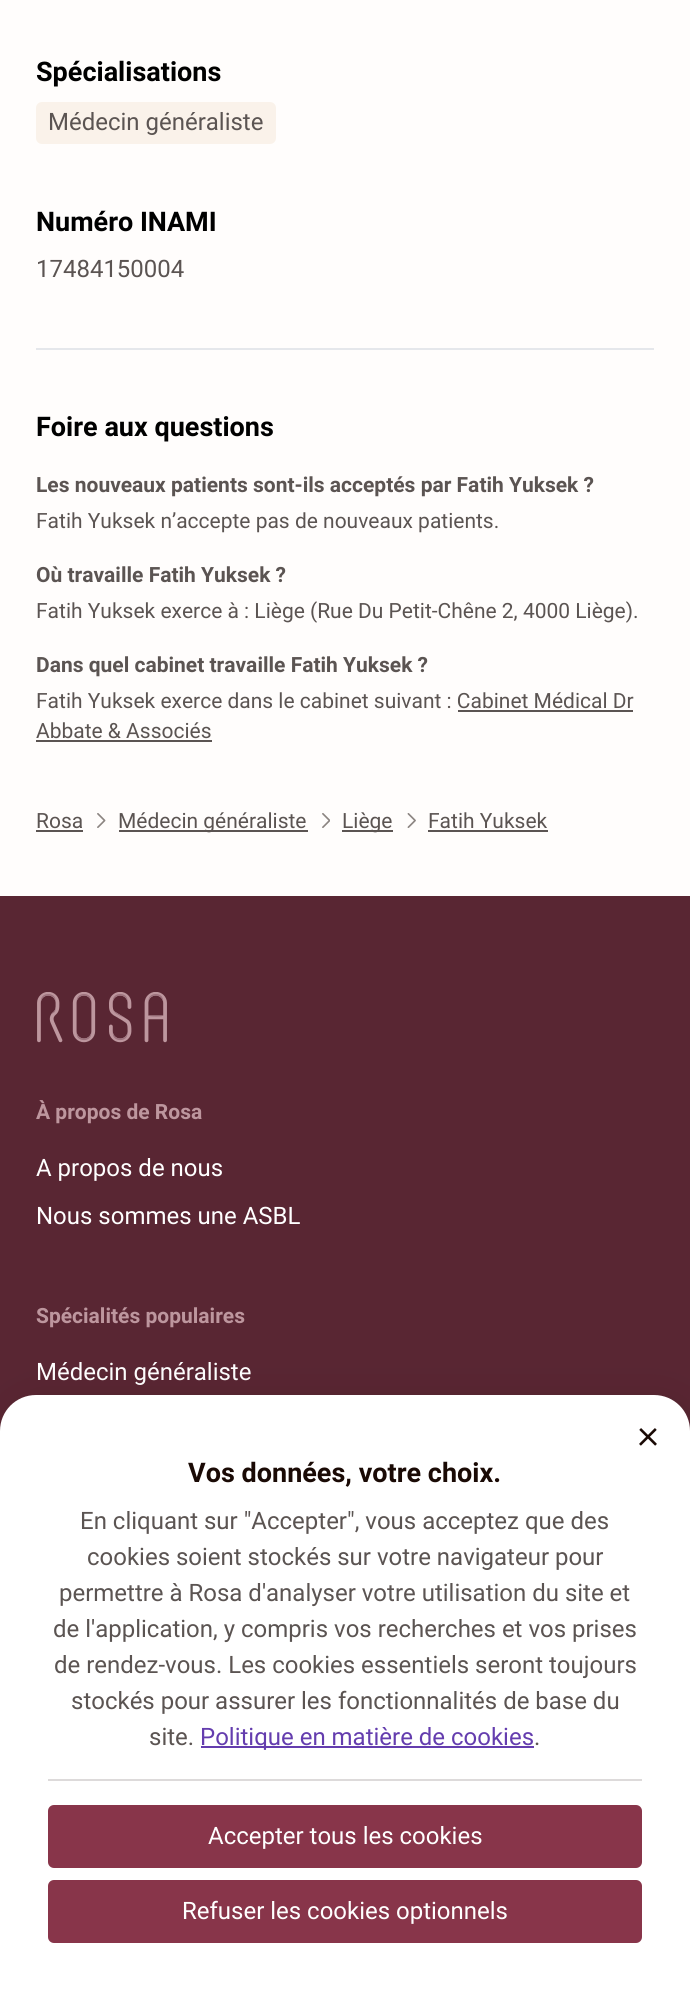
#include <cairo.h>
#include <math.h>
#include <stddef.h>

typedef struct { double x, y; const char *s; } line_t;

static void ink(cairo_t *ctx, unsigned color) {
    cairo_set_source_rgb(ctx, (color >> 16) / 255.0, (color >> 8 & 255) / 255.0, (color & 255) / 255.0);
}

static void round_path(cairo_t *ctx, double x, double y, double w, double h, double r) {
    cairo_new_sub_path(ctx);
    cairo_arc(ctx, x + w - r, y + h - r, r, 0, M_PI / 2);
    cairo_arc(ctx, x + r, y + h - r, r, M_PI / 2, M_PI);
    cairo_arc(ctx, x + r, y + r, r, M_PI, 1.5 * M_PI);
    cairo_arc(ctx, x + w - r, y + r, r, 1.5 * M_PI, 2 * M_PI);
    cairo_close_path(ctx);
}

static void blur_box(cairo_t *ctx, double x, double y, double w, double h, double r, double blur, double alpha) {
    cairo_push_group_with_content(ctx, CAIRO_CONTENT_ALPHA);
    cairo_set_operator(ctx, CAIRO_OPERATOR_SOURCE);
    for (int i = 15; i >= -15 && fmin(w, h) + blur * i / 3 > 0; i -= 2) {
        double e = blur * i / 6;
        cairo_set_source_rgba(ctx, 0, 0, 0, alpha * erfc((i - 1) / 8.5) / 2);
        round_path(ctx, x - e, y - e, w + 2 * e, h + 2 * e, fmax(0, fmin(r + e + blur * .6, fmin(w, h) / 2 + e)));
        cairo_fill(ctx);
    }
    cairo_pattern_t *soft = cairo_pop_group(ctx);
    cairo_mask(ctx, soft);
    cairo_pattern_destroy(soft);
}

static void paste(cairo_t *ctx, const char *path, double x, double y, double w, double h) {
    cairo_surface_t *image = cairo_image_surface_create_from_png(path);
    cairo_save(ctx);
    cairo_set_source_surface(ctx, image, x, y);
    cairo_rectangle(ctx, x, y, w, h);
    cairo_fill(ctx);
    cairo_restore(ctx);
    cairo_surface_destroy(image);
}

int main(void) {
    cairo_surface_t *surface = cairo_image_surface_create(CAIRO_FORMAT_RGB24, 690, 2014);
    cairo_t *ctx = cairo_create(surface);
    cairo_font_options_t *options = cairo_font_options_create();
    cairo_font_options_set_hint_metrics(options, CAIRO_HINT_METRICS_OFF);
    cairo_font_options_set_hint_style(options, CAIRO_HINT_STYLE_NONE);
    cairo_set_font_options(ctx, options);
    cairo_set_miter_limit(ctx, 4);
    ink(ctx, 0xFFFDFC);
    cairo_paint(ctx);
    cairo_select_font_face(ctx, "Roboto", CAIRO_FONT_SLANT_NORMAL, CAIRO_FONT_WEIGHT_BOLD);
    cairo_set_font_size(ctx, 27);
    ink(ctx, 0x000000);
    cairo_move_to(ctx, 36, 81);
    cairo_show_text(ctx, "Spécialisations");
    ink(ctx, 0xFAF2EA);
    round_path(ctx, 36, 102, 240, 42, 6);
    cairo_fill(ctx);
    cairo_select_font_face(ctx, "Roboto", CAIRO_FONT_SLANT_NORMAL, CAIRO_FONT_WEIGHT_NORMAL);
    cairo_set_font_size(ctx, 24);
    ink(ctx, 0x5B5452);
    cairo_move_to(ctx, 48, 130);
    cairo_show_text(ctx, "Médecin généraliste");
    cairo_select_font_face(ctx, "Roboto", CAIRO_FONT_SLANT_NORMAL, CAIRO_FONT_WEIGHT_BOLD);
    cairo_set_font_size(ctx, 27);
    ink(ctx, 0x000000);
    cairo_move_to(ctx, 36, 231);
    cairo_show_text(ctx, "Numéro INAMI");
    cairo_select_font_face(ctx, "Roboto", CAIRO_FONT_SLANT_NORMAL, CAIRO_FONT_WEIGHT_NORMAL);
    cairo_set_font_size(ctx, 24);
    ink(ctx, 0x5B5452);
    cairo_move_to(ctx, 36, 277);
    cairo_show_text(ctx, "17484150004");
    ink(ctx, 0xE5E7EB);
    cairo_rectangle(ctx, 36, 348, 618, 2);
    cairo_fill(ctx);
    cairo_select_font_face(ctx, "Roboto", CAIRO_FONT_SLANT_NORMAL, CAIRO_FONT_WEIGHT_BOLD);
    cairo_set_font_size(ctx, 27);
    ink(ctx, 0x000000);
    cairo_move_to(ctx, 36, 436);
    cairo_show_text(ctx, "Foire aux questions");
    cairo_set_font_size(ctx, 21);
    ink(ctx, 0x5B5452);
    cairo_move_to(ctx, 36, 492);
    cairo_show_text(ctx, "Les nouveaux patients sont-ils acceptés par Fatih Yuksek ?");
    cairo_select_font_face(ctx, "Roboto", CAIRO_FONT_SLANT_NORMAL, CAIRO_FONT_WEIGHT_NORMAL);
    cairo_move_to(ctx, 36, 528);
    cairo_show_text(ctx, "Fatih Yuksek n’accepte pas de nouveaux patients.");
    cairo_select_font_face(ctx, "Roboto", CAIRO_FONT_SLANT_NORMAL, CAIRO_FONT_WEIGHT_BOLD);
    cairo_move_to(ctx, 36, 582);
    cairo_show_text(ctx, "Où travaille Fatih Yuksek ?");
    cairo_select_font_face(ctx, "Roboto", CAIRO_FONT_SLANT_NORMAL, CAIRO_FONT_WEIGHT_NORMAL);
    cairo_move_to(ctx, 36, 618);
    cairo_show_text(ctx, "Fatih Yuksek exerce à : Liège (Rue Du Petit-Chêne 2, 4000 Liège).");
    cairo_select_font_face(ctx, "Roboto", CAIRO_FONT_SLANT_NORMAL, CAIRO_FONT_WEIGHT_BOLD);
    cairo_move_to(ctx, 36, 672);
    cairo_show_text(ctx, "Dans quel cabinet travaille Fatih Yuksek ?");
    cairo_select_font_face(ctx, "Roboto", CAIRO_FONT_SLANT_NORMAL, CAIRO_FONT_WEIGHT_NORMAL);
    cairo_move_to(ctx, 36, 708);
    cairo_show_text(ctx, "Fatih Yuksek exerce dans le cabinet suivant : Cabinet Médical Dr");
    cairo_move_to(ctx, 36, 738);
    cairo_show_text(ctx, "Abbate & Associés");
    cairo_rectangle(ctx, 458, 710, 175, 2);
    cairo_fill(ctx);
    cairo_rectangle(ctx, 36, 740, 176, 2);
    cairo_fill(ctx);
    cairo_move_to(ctx, 36, 828);
    cairo_show_text(ctx, "Rosa");
    cairo_rectangle(ctx, 36, 830, 47, 2);
    cairo_fill(ctx);
    paste(ctx, "media/1.png", 97, 813, 9, 15);
    cairo_rectangle(ctx, 119, 830, 189, 2);
    cairo_fill(ctx);
    cairo_move_to(ctx, 118, 828);
    cairo_show_text(ctx, "Médecin généraliste");
    paste(ctx, "media/2.png", 322, 813, 8, 15);
    cairo_rectangle(ctx, 342, 830, 51, 2);
    cairo_fill(ctx);
    cairo_move_to(ctx, 342, 828);
    cairo_show_text(ctx, "Liège");
    paste(ctx, "media/3.png", 407, 813, 9, 15);
    cairo_move_to(ctx, 428, 828);
    cairo_show_text(ctx, "Fatih Yuksek");
    cairo_rectangle(ctx, 428, 830, 120, 2);
    cairo_fill(ctx);
    ink(ctx, 0x592633);
    cairo_rectangle(ctx, 0, 896, 690, 535);
    cairo_fill(ctx);
    paste(ctx, "media/4.png", 37, 992, 130, 51);
    cairo_select_font_face(ctx, "Roboto", CAIRO_FONT_SLANT_NORMAL, CAIRO_FONT_WEIGHT_BOLD);
    ink(ctx, 0xBD969E);
    cairo_move_to(ctx, 36, 1119);
    cairo_show_text(ctx, "À propos de Rosa");
    cairo_select_font_face(ctx, "Roboto", CAIRO_FONT_SLANT_NORMAL, CAIRO_FONT_WEIGHT_NORMAL);
    cairo_set_font_size(ctx, 24);
    ink(ctx, 0xFFFFFF);
    cairo_move_to(ctx, 36, 1176);
    cairo_show_text(ctx, "A propos de nous");
    cairo_move_to(ctx, 36, 1224);
    cairo_show_text(ctx, "Nous sommes une ASBL");
    cairo_select_font_face(ctx, "Roboto", CAIRO_FONT_SLANT_NORMAL, CAIRO_FONT_WEIGHT_BOLD);
    cairo_set_font_size(ctx, 21);
    ink(ctx, 0xBD969E);
    cairo_move_to(ctx, 36, 1323);
    cairo_show_text(ctx, "Spécialités populaires");
    cairo_select_font_face(ctx, "Roboto", CAIRO_FONT_SLANT_NORMAL, CAIRO_FONT_WEIGHT_NORMAL);
    cairo_set_font_size(ctx, 24);
    ink(ctx, 0xFFFFFF);
    cairo_move_to(ctx, 36, 1380);
    cairo_show_text(ctx, "Médecin généraliste");
    ink(ctx, 0x1A0A05);
    blur_box(ctx, -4, 1395, 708, 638, 45, 18, 0.11);
    ink(ctx, 0xFFFFFF);
    cairo_new_path(ctx);
    cairo_move_to(ctx, 36, 1395);
    cairo_line_to(ctx, 654, 1395);
    cairo_curve_to(ctx, 674, 1395, 690, 1411, 690, 1431);
    cairo_line_to(ctx, 690, 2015);
    cairo_line_to(ctx, 0, 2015);
    cairo_line_to(ctx, 0, 1431);
    cairo_curve_to(ctx, 0, 1411, 16, 1395, 36, 1395);
    cairo_close_path(ctx);
    cairo_fill(ctx);
    paste(ctx, "media/5.png", 639, 1428, 18, 18);
    cairo_select_font_face(ctx, "Roboto", CAIRO_FONT_SLANT_NORMAL, CAIRO_FONT_WEIGHT_BOLD);
    cairo_set_font_size(ctx, 27);
    ink(ctx, 0x1A0A05);
    cairo_move_to(ctx, 188, 1482);
    cairo_show_text(ctx, "Vos données, votre choix.");
    cairo_select_font_face(ctx, "Roboto", CAIRO_FONT_SLANT_NORMAL, CAIRO_FONT_WEIGHT_NORMAL);
    cairo_set_font_size(ctx, 24);
    ink(ctx, 0x5B5452);
    {
        static const line_t items[] = {
            {80, 1529, "En cliquant sur \"Accepter\", vous acceptez que des"},
            {87, 1565, "cookies soient stockés sur votre navigateur pour"},
            {59, 1601, "permettre à Rosa d'analyser votre utilisation du site et"},
            {53, 1637, "de l'application, y compris vos recherches et vos prises"},
            {54, 1673, "de rendez-vous. Les cookies essentiels seront toujours"},
            {71, 1709, "stockés pour assurer les fonctionnalités de base du"},
            {149, 1745, "site."},
        };
        for (size_t i = 0; i < sizeof items / sizeof *items; i++) {
            cairo_move_to(ctx, items[i].x, items[i].y);
            cairo_show_text(ctx, items[i].s);
        }
    }
    ink(ctx, 0x643DAE);
    cairo_rectangle(ctx, 201, 1746, 333, 2);
    cairo_fill(ctx);
    cairo_move_to(ctx, 200, 1745);
    cairo_show_text(ctx, "Politique en matière de cookies");
    ink(ctx, 0x5B5452);
    cairo_move_to(ctx, 534, 1745);
    cairo_show_text(ctx, ".");
    ink(ctx, 0xDDDADA);
    cairo_rectangle(ctx, 48, 1779, 594, 2);
    cairo_fill(ctx);
    ink(ctx, 0x88354A);
    round_path(ctx, 49, 1806, 592, 61, 5);
    cairo_fill_preserve(ctx);
    cairo_stroke(ctx);
    ink(ctx, 0xFFFFFF);
    cairo_move_to(ctx, 208, 1844);
    cairo_show_text(ctx, "Accepter tous les cookies");
    ink(ctx, 0x88354A);
    round_path(ctx, 49, 1881, 592, 61, 5);
    cairo_fill_preserve(ctx);
    cairo_stroke(ctx);
    ink(ctx, 0xFFFFFF);
    cairo_move_to(ctx, 182, 1919);
    cairo_show_text(ctx, "Refuser les cookies optionnels");
    cairo_surface_write_to_png(surface, "image.png");
    cairo_font_options_destroy(options);
    cairo_destroy(ctx);
    cairo_surface_destroy(surface);
    return 0;
}
